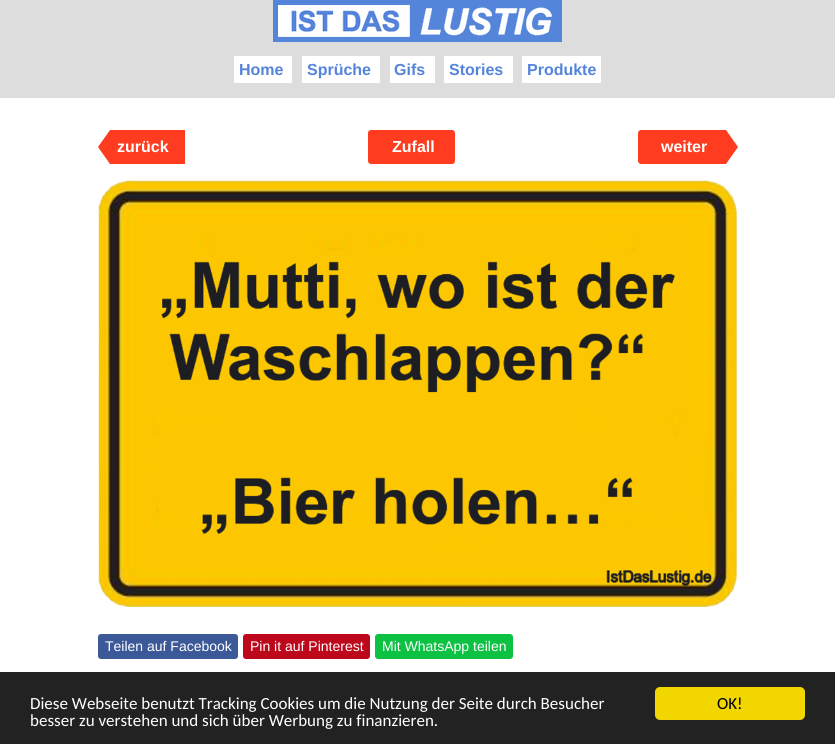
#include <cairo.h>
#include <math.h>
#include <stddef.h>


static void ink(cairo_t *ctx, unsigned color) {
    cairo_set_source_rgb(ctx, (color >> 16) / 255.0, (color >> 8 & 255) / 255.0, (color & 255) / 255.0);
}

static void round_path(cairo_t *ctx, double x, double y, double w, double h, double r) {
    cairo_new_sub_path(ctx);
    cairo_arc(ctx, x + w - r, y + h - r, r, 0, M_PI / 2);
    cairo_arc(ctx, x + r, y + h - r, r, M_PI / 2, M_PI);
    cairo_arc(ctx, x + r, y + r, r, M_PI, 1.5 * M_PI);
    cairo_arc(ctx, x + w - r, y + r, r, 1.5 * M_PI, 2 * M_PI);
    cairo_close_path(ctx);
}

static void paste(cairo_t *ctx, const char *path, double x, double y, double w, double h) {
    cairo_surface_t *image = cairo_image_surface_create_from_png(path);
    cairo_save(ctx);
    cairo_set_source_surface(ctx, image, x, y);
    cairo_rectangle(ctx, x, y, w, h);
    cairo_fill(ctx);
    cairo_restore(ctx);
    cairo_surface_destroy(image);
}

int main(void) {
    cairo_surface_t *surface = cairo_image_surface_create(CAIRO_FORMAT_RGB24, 835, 744);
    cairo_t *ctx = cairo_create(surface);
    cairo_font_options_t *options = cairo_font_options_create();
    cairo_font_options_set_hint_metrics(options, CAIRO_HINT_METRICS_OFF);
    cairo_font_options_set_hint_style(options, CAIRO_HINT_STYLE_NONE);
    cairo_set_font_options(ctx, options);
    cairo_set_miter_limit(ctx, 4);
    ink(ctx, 0xFFFFFF);
    cairo_paint(ctx);
    ink(ctx, 0xDDDDDD);
    cairo_rectangle(ctx, 0, 0, 835, 98);
    cairo_fill(ctx);
    paste(ctx, "media/1.png", 273, 0, 289, 42);
    ink(ctx, 0xFFFFFF);
    cairo_rectangle(ctx, 234, 56, 58, 27);
    cairo_fill(ctx);
    cairo_select_font_face(ctx, "Liberation Sans", CAIRO_FONT_SLANT_NORMAL, CAIRO_FONT_WEIGHT_BOLD);
    cairo_set_font_size(ctx, 16);
    ink(ctx, 0x5584DB);
    cairo_move_to(ctx, 239, 75);
    cairo_show_text(ctx, "Home");
    ink(ctx, 0xFFFFFF);
    cairo_rectangle(ctx, 302, 56, 78, 27);
    cairo_fill(ctx);
    ink(ctx, 0x5584DB);
    cairo_move_to(ctx, 307, 75);
    cairo_show_text(ctx, "Sprüche");
    ink(ctx, 0xFFFFFF);
    cairo_rectangle(ctx, 390, 56, 45, 27);
    cairo_fill(ctx);
    ink(ctx, 0x5584DB);
    cairo_move_to(ctx, 394, 75);
    cairo_show_text(ctx, "Gifs");
    ink(ctx, 0xFFFFFF);
    cairo_rectangle(ctx, 444, 56, 69, 27);
    cairo_fill(ctx);
    ink(ctx, 0x5584DB);
    cairo_move_to(ctx, 449, 75);
    cairo_show_text(ctx, "Stories");
    ink(ctx, 0xFFFFFF);
    cairo_rectangle(ctx, 522, 56, 79, 27);
    cairo_fill(ctx);
    ink(ctx, 0x5584DB);
    cairo_move_to(ctx, 527, 75);
    cairo_show_text(ctx, "Produkte");
    ink(ctx, 0xFF3C1F);
    cairo_new_path(ctx);
    cairo_move_to(ctx, 110, 130);
    cairo_line_to(ctx, 110, 164);
    cairo_line_to(ctx, 98, 147);
    cairo_close_path(ctx);
    cairo_fill(ctx);
    cairo_rectangle(ctx, 110, 130, 75, 34);
    cairo_fill(ctx);
    ink(ctx, 0xFFFFFF);
    cairo_move_to(ctx, 117, 152);
    cairo_show_text(ctx, "zurück");
    ink(ctx, 0xFF3C1F);
    round_path(ctx, 368, 130, 87, 34, 3);
    cairo_fill(ctx);
    ink(ctx, 0xFFFFFF);
    cairo_move_to(ctx, 392, 152);
    cairo_show_text(ctx, "Zufall");
    ink(ctx, 0xFF3C1F);
    cairo_new_path(ctx);
    cairo_move_to(ctx, 641, 130);
    cairo_line_to(ctx, 726, 130);
    cairo_line_to(ctx, 726, 164);
    cairo_line_to(ctx, 641, 164);
    cairo_curve_to(ctx, 639.5, 164, 638, 162.5, 638, 161);
    cairo_line_to(ctx, 638, 133);
    cairo_curve_to(ctx, 638, 131.5, 639.5, 130, 641, 130);
    cairo_close_path(ctx);
    cairo_fill(ctx);
    ink(ctx, 0xFFFFFF);
    cairo_move_to(ctx, 661, 152);
    cairo_show_text(ctx, "weiter");
    ink(ctx, 0xFF3C1F);
    cairo_new_path(ctx);
    cairo_move_to(ctx, 726, 164);
    cairo_line_to(ctx, 726, 130);
    cairo_line_to(ctx, 738, 147);
    cairo_close_path(ctx);
    cairo_fill(ctx);
    paste(ctx, "media/2.png", 98, 180, 639, 427);
    ink(ctx, 0x3B5998);
    round_path(ctx, 98, 634, 140, 25, 3);
    cairo_fill(ctx);
    cairo_select_font_face(ctx, "Liberation Sans", CAIRO_FONT_SLANT_NORMAL, CAIRO_FONT_WEIGHT_NORMAL);
    cairo_set_font_size(ctx, 14);
    ink(ctx, 0xFFFFFF);
    cairo_move_to(ctx, 105, 651);
    cairo_show_text(ctx, "Teilen auf Facebook");
    ink(ctx, 0xBD081C);
    round_path(ctx, 243, 634, 127, 25, 3);
    cairo_fill(ctx);
    ink(ctx, 0xFFFFFF);
    cairo_move_to(ctx, 250, 651);
    cairo_show_text(ctx, "Pin it auf Pinterest");
    ink(ctx, 0x0DC143);
    round_path(ctx, 375, 634, 138, 25, 3);
    cairo_fill(ctx);
    ink(ctx, 0xFFFFFF);
    cairo_move_to(ctx, 382, 651);
    cairo_show_text(ctx, "Mit WhatsApp teilen");
    ink(ctx, 0x222222);
    cairo_rectangle(ctx, 0, 672, 835, 72);
    cairo_fill(ctx);
    cairo_select_font_face(ctx, "Carlito", CAIRO_FONT_SLANT_NORMAL, CAIRO_FONT_WEIGHT_NORMAL);
    cairo_set_font_size(ctx, 17);
    ink(ctx, 0xFFFFFF);
    cairo_move_to(ctx, 30, 709);
    cairo_show_text(ctx, "Diese Webseite benutzt Tracking Cookies um die Nutzung der Seite durch Besucher");
    cairo_move_to(ctx, 30, 726);
    cairo_show_text(ctx, "besser zu verstehen und sich über Werbung zu finanzieren.");
    ink(ctx, 0xF1D600);
    round_path(ctx, 655, 687, 150, 33, 5);
    cairo_fill(ctx);
    ink(ctx, 0x000000);
    cairo_move_to(ctx, 717, 709);
    cairo_show_text(ctx, "OK!");
    cairo_surface_write_to_png(surface, "image.png");
    cairo_font_options_destroy(options);
    cairo_destroy(ctx);
    cairo_surface_destroy(surface);
    return 0;
}
